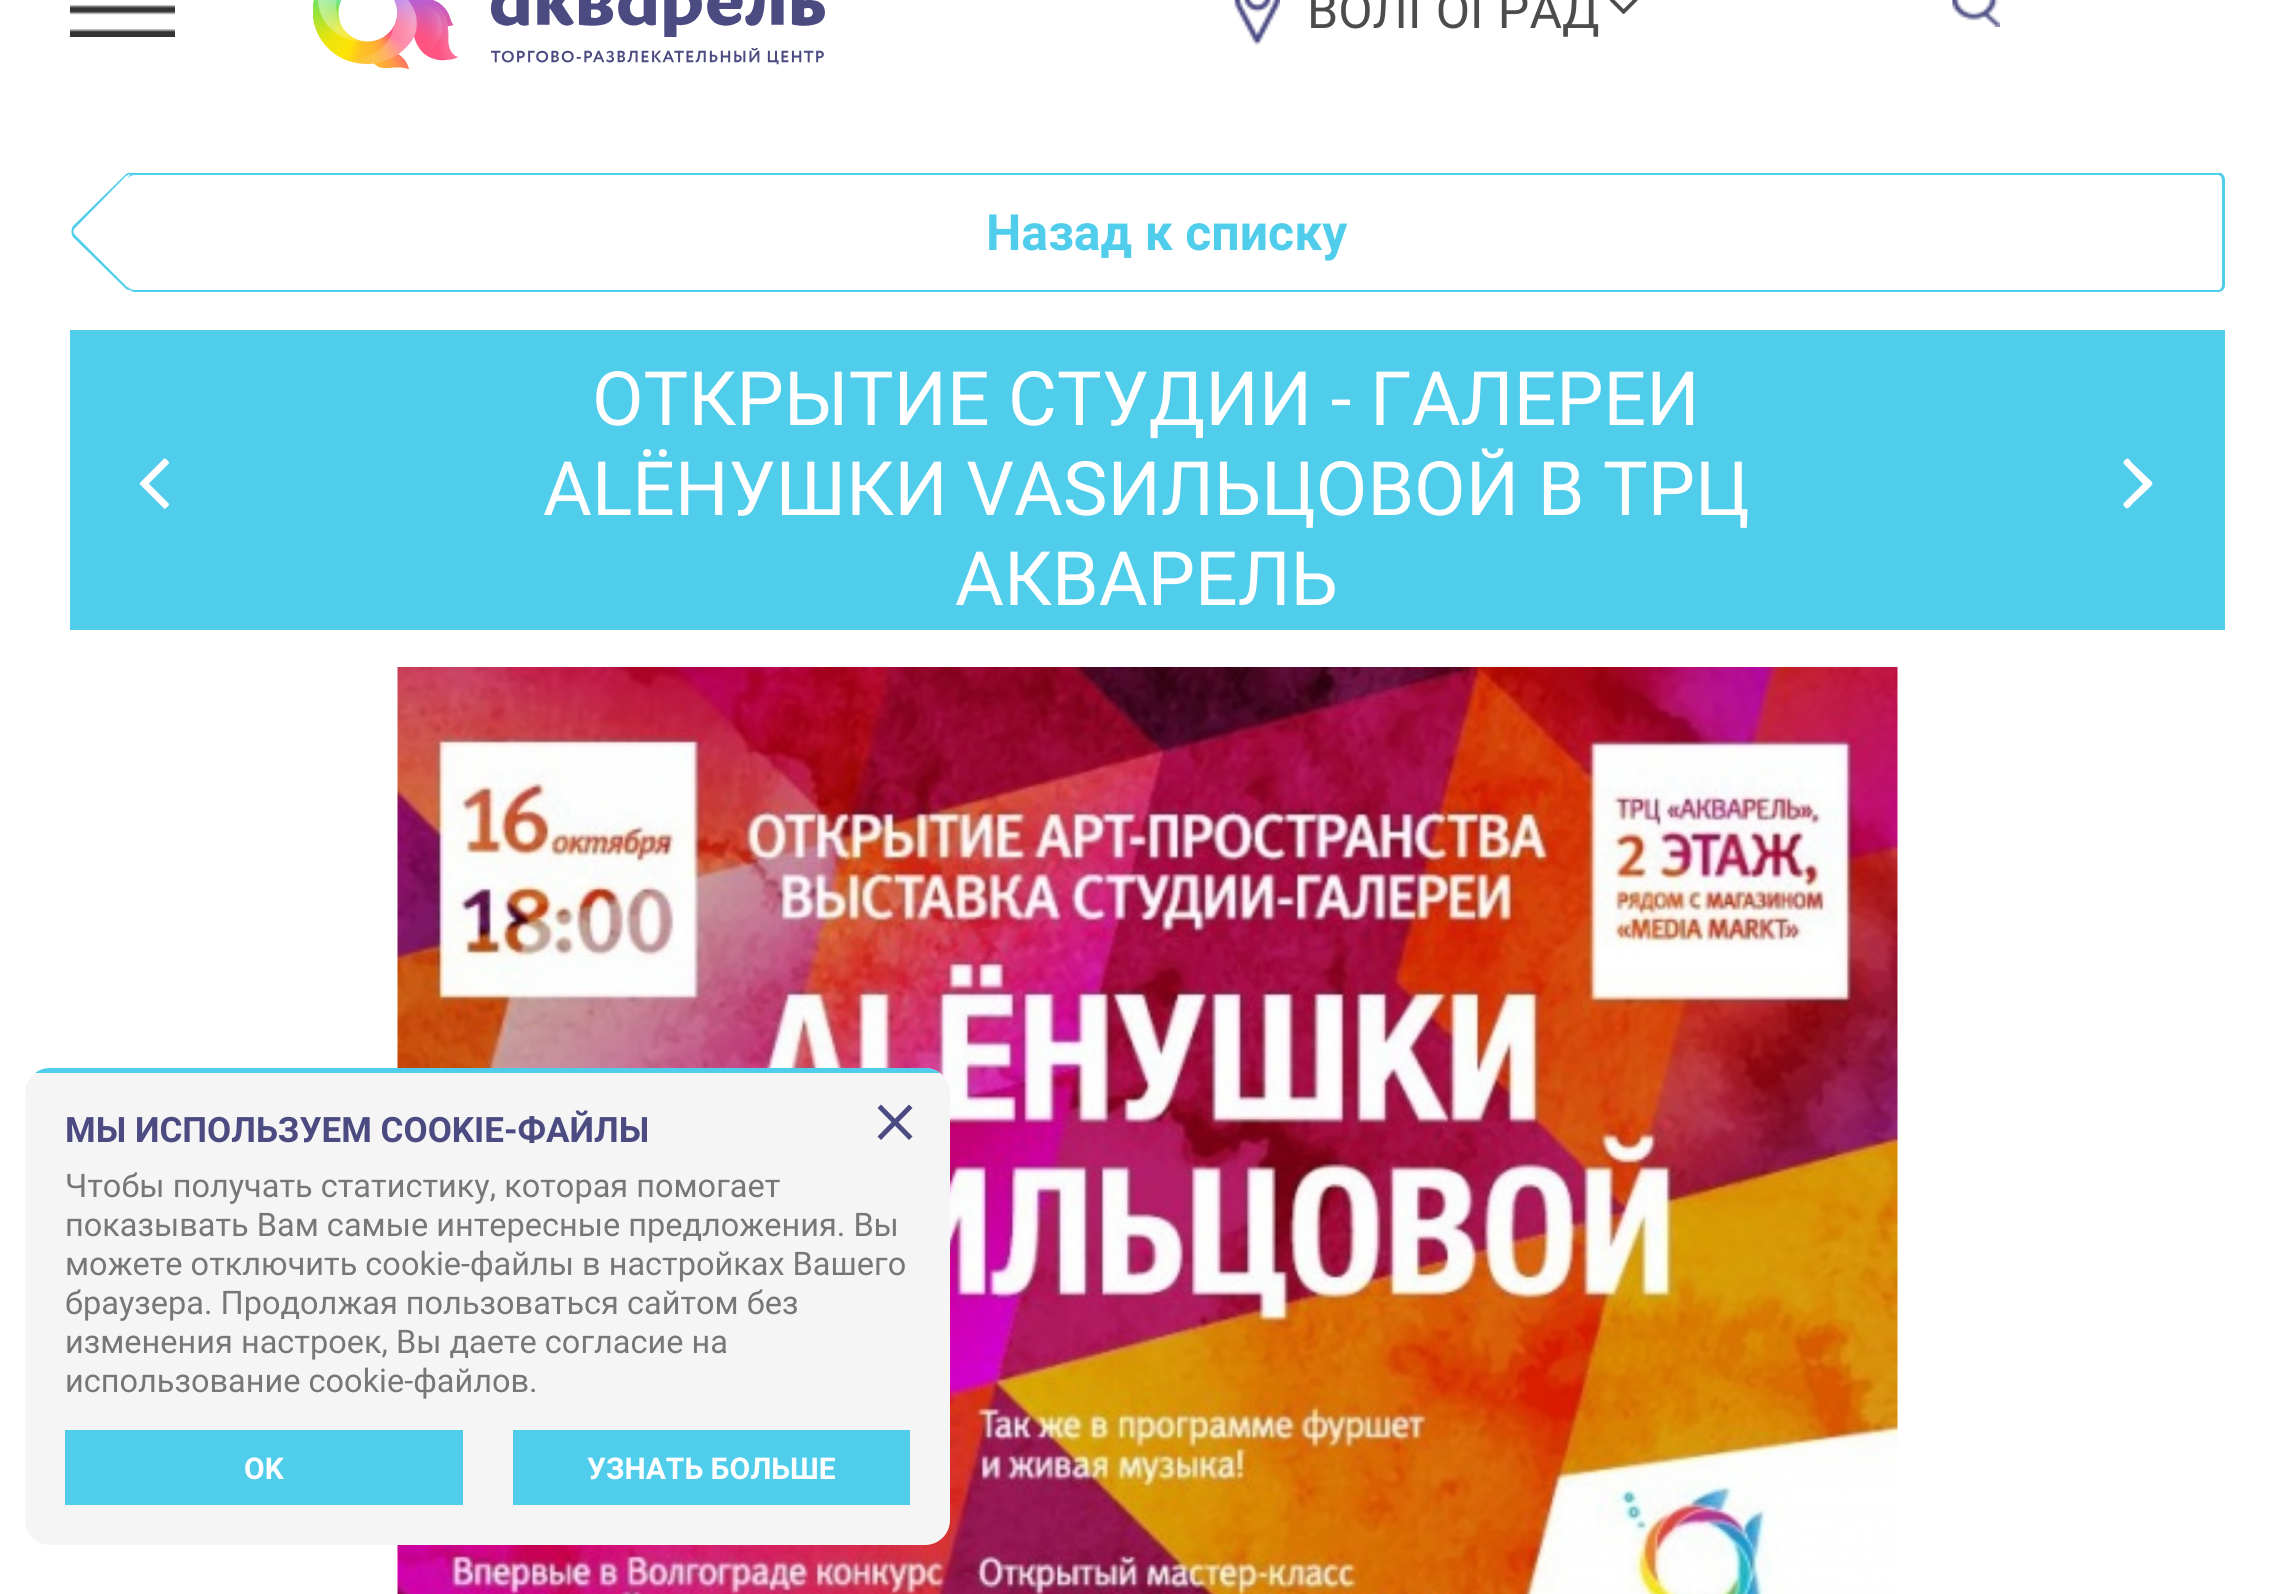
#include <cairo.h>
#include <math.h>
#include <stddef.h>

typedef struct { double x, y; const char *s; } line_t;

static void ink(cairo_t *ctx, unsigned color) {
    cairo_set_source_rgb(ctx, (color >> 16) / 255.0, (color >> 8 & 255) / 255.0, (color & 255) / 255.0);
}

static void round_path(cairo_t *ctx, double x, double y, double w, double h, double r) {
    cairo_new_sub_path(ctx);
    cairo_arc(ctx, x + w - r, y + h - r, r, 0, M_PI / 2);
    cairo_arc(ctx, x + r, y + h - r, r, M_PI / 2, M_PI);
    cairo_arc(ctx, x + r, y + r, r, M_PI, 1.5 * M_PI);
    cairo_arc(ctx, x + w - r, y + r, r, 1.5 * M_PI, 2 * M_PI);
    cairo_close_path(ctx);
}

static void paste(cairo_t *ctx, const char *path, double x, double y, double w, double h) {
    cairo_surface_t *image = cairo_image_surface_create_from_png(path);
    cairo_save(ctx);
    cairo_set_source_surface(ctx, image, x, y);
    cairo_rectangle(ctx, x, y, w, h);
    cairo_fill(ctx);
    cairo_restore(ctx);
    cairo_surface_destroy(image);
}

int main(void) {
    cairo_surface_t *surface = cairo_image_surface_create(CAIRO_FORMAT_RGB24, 2291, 1594);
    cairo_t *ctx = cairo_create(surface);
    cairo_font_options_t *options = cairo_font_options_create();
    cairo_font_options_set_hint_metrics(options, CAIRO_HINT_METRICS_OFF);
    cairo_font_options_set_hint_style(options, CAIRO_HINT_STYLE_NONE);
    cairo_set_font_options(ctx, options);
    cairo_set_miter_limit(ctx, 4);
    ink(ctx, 0xFFFFFF);
    cairo_paint(ctx);
    paste(ctx, "media/1.png", 70, 5, 105, 32);
    paste(ctx, "media/2.png", 313, 0, 512, 70);
    paste(ctx, "media/3.png", 1233, 0, 47, 45);
    cairo_select_font_face(ctx, "Roboto", CAIRO_FONT_SLANT_NORMAL, CAIRO_FONT_WEIGHT_NORMAL);
    cairo_set_font_size(ctx, 50);
    ink(ctx, 0x4C4C4C);
    cairo_move_to(ctx, 1307, 28);
    cairo_show_text(ctx, "ВОЛГОГРАД");
    paste(ctx, "media/4.png", 1609, 0, 29, 15);
    paste(ctx, "media/5.png", 1952, 0, 48, 27);
    ink(ctx, 0x50CDEB);
    cairo_set_fill_rule(ctx, CAIRO_FILL_RULE_EVEN_ODD);
    cairo_new_path(ctx);
    cairo_move_to(ctx, 135, 175);
    cairo_line_to(ctx, 187, 226);
    cairo_curve_to(ctx, 189, 229, 189, 234, 187, 237);
    cairo_line_to(ctx, 135, 288);
    cairo_curve_to(ctx, 132, 291, 128, 291, 125, 288);
    cairo_line_to(ctx, 73, 237);
    cairo_curve_to(ctx, 71, 234, 71, 229, 73, 226);
    cairo_line_to(ctx, 125, 175);
    cairo_curve_to(ctx, 128, 172, 132, 172, 135, 175);
    cairo_close_path(ctx);
    cairo_move_to(ctx, 135, 175);
    cairo_line_to(ctx, 187, 226);
    cairo_curve_to(ctx, 189, 229, 189, 234, 187, 237);
    cairo_line_to(ctx, 135, 288);
    cairo_curve_to(ctx, 133, 290, 129, 289, 126, 286);
    cairo_line_to(ctx, 75, 235);
    cairo_curve_to(ctx, 73, 233, 73, 230, 75, 228);
    cairo_line_to(ctx, 126, 176);
    cairo_curve_to(ctx, 129, 174, 133, 173, 135, 175);
    cairo_close_path(ctx);
    cairo_fill(ctx);
    ink(ctx, 0xFFFFFF);
    round_path(ctx, 128, 173, 2097, 120, 8);
    cairo_fill(ctx);
    cairo_save(ctx);
    cairo_set_fill_rule(ctx, CAIRO_FILL_RULE_WINDING);
    cairo_rectangle(ctx, 70, 173, 2155, 120);
    cairo_clip(ctx);
    ink(ctx, 0x50CDEB);
    cairo_set_fill_rule(ctx, CAIRO_FILL_RULE_EVEN_ODD);
    cairo_new_path(ctx);
    cairo_move_to(ctx, 135, 172);
    cairo_line_to(ctx, 2218, 172);
    cairo_curve_to(ctx, 2222, 172, 2225, 176, 2225, 180);
    cairo_line_to(ctx, 2225, 285);
    cairo_curve_to(ctx, 2225, 289, 2222, 292, 2218, 292);
    cairo_line_to(ctx, 135, 292);
    cairo_curve_to(ctx, 131, 292, 128, 289, 128, 285);
    cairo_line_to(ctx, 128, 180);
    cairo_curve_to(ctx, 128, 176, 131, 172, 135, 172);
    cairo_close_path(ctx);
    cairo_move_to(ctx, 135, 175);
    cairo_line_to(ctx, 2218, 175);
    cairo_curve_to(ctx, 2220, 175, 2222, 177, 2222, 180);
    cairo_line_to(ctx, 2222, 285);
    cairo_curve_to(ctx, 2222, 288, 2220, 290, 2218, 290);
    cairo_line_to(ctx, 135, 290);
    cairo_curve_to(ctx, 131, 290, 128, 288, 128, 285);
    cairo_line_to(ctx, 128, 180);
    cairo_curve_to(ctx, 128, 177, 131, 175, 135, 175);
    cairo_close_path(ctx);
    cairo_fill(ctx);
    cairo_restore(ctx);
    cairo_select_font_face(ctx, "Roboto", CAIRO_FONT_SLANT_NORMAL, CAIRO_FONT_WEIGHT_BOLD);
    ink(ctx, 0x50CDEB);
    cairo_move_to(ctx, 986, 250);
    cairo_show_text(ctx, "Назад к списку");
    cairo_rectangle(ctx, 70, 330, 2155, 300);
    cairo_fill(ctx);
    paste(ctx, "media/6.png", 139, 458, 30, 51);
    cairo_select_font_face(ctx, "Roboto", CAIRO_FONT_SLANT_NORMAL, CAIRO_FONT_WEIGHT_NORMAL);
    cairo_set_font_size(ctx, 75);
    ink(ctx, 0xFFFFFF);
    {
        static const line_t items[] = {
            {592, 425, "ОТКРЫТИЕ СТУДИИ - ГАЛЕРЕИ"},
            {543, 515, "ALЁНУШКИ VASИЛЬЦОВОЙ В ТРЦ"},
            {955, 605, "АКВАРЕЛЬ"},
        };
        for (size_t i = 0; i < sizeof items / sizeof *items; i++) {
            cairo_move_to(ctx, items[i].x, items[i].y);
            cairo_show_text(ctx, items[i].s);
        }
    }
    cairo_set_fill_rule(ctx, CAIRO_FILL_RULE_WINDING);
    cairo_new_path(ctx);
    cairo_move_to(ctx, 2152, 482);
    cairo_curve_to(ctx, 2154, 485, 2148, 488, 2148, 489);
    cairo_line_to(ctx, 2132, 504);
    cairo_curve_to(ctx, 2132, 504, 2128, 510, 2126, 508);
    cairo_curve_to(ctx, 2125, 507, 2122, 505, 2124, 503);
    cairo_line_to(ctx, 2143, 484);
    cairo_line_to(ctx, 2127, 467);
    cairo_curve_to(ctx, 2124, 464, 2122, 463, 2125, 460);
    cairo_curve_to(ctx, 2128, 457, 2129, 459, 2132, 463);
    cairo_close_path(ctx);
    cairo_fill(ctx);
    paste(ctx, "media/7.png", 397, 667, 1501, 927);
    ink(ctx, 0xF5F5F5);
    round_path(ctx, 25, 1068, 925, 477, 25);
    cairo_fill(ctx);
    cairo_save(ctx);
    round_path(ctx, 25, 1068, 925, 477, 25);
    cairo_clip(ctx);
    ink(ctx, 0x50CDEB);
    cairo_rectangle(ctx, 35, 1068, 905, 5);
    cairo_fill(ctx);
    cairo_restore(ctx);
    cairo_select_font_face(ctx, "Roboto", CAIRO_FONT_SLANT_NORMAL, CAIRO_FONT_WEIGHT_BOLD);
    cairo_set_font_size(ctx, 35);
    ink(ctx, 0x4B4B82);
    cairo_move_to(ctx, 65, 1142);
    cairo_show_text(ctx, "МЫ ИСПОЛЬЗУЕМ COOKIE-ФАЙЛЫ");
    cairo_new_path(ctx);
    cairo_move_to(ctx, 881, 1104.5);
    cairo_line_to(ctx, 912.5, 1136.5);
    cairo_line_to(ctx, 909, 1140);
    cairo_line_to(ctx, 877.5, 1108);
    cairo_close_path(ctx);
    cairo_fill(ctx);
    cairo_new_path(ctx);
    cairo_move_to(ctx, 877.5, 1136.5);
    cairo_line_to(ctx, 909, 1104.5);
    cairo_line_to(ctx, 912.5, 1108);
    cairo_line_to(ctx, 881, 1140);
    cairo_close_path(ctx);
    cairo_fill(ctx);
    cairo_select_font_face(ctx, "Roboto", CAIRO_FONT_SLANT_NORMAL, CAIRO_FONT_WEIGHT_NORMAL);
    cairo_set_font_size(ctx, 32.5);
    ink(ctx, 0x777777);
    {
        static const line_t items[] = {
            {65, 1197, "Чтобы получать статистику, которая помогает"},
            {65, 1236, "показывать Вам самые интересные предложения. Вы"},
            {65, 1275, "можете отключить cookie-файлы в настройках Вашего"},
            {65, 1314, "браузера. Продолжая пользоваться сайтом без"},
            {65, 1353, "изменения настроек, Вы даете согласие на"},
            {65, 1392, "использование cookie-файлов."},
        };
        for (size_t i = 0; i < sizeof items / sizeof *items; i++) {
            cairo_move_to(ctx, items[i].x, items[i].y);
            cairo_show_text(ctx, items[i].s);
        }
    }
    ink(ctx, 0x50CDEB);
    cairo_rectangle(ctx, 65, 1430, 398, 75);
    cairo_fill(ctx);
    cairo_select_font_face(ctx, "Roboto", CAIRO_FONT_SLANT_NORMAL, CAIRO_FONT_WEIGHT_BOLD);
    cairo_set_font_size(ctx, 30);
    ink(ctx, 0xFFFFFF);
    cairo_move_to(ctx, 244, 1479);
    cairo_show_text(ctx, "OK");
    ink(ctx, 0x50CDEB);
    cairo_rectangle(ctx, 513, 1430, 397, 75);
    cairo_fill(ctx);
    ink(ctx, 0xFFFFFF);
    cairo_move_to(ctx, 587, 1479);
    cairo_show_text(ctx, "УЗНАТЬ БОЛЬШЕ");
    cairo_surface_write_to_png(surface, "image.png");
    cairo_font_options_destroy(options);
    cairo_destroy(ctx);
    cairo_surface_destroy(surface);
    return 0;
}
